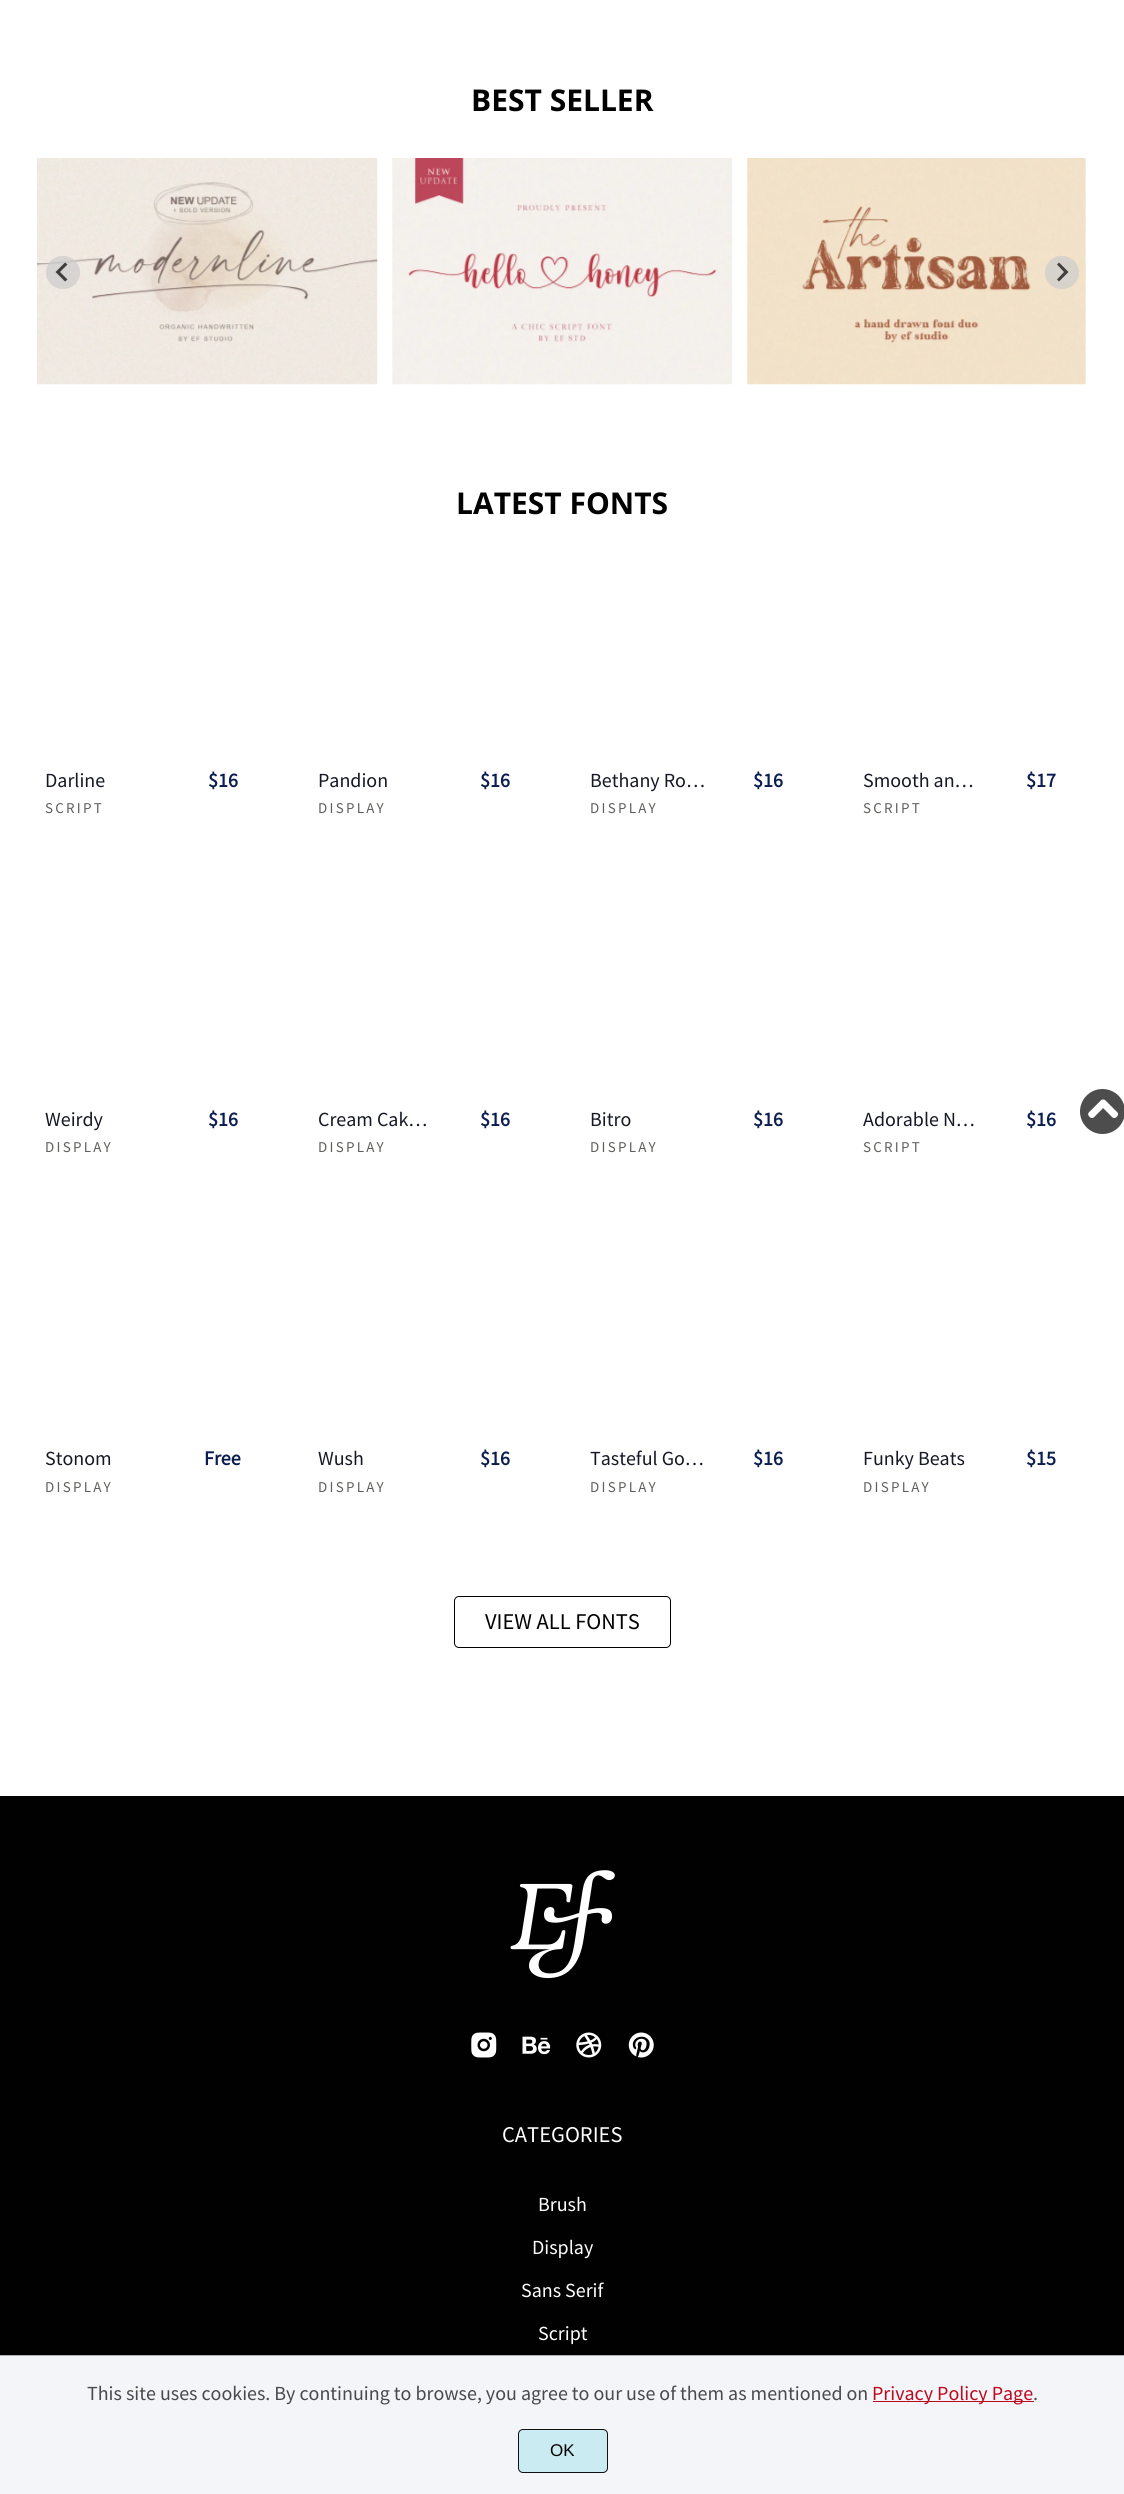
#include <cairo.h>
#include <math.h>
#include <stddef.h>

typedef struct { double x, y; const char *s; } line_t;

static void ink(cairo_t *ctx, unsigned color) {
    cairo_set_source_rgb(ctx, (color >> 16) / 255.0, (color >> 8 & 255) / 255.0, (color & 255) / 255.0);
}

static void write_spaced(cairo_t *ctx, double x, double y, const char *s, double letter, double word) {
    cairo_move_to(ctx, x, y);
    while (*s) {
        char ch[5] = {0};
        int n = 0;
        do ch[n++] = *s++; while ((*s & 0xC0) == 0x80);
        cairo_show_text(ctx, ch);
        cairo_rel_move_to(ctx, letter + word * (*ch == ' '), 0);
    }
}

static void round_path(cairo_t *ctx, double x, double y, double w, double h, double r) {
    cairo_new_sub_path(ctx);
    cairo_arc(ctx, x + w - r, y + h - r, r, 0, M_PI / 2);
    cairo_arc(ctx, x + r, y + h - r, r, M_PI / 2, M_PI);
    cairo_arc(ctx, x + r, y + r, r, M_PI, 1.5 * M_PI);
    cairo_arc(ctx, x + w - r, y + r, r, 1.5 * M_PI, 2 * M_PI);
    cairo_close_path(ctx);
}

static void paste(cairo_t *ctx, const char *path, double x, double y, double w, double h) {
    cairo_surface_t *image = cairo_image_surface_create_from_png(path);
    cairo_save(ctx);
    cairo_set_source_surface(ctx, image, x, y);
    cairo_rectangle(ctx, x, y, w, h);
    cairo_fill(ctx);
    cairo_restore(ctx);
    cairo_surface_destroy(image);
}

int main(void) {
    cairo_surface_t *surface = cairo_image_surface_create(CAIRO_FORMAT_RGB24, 1124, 2494);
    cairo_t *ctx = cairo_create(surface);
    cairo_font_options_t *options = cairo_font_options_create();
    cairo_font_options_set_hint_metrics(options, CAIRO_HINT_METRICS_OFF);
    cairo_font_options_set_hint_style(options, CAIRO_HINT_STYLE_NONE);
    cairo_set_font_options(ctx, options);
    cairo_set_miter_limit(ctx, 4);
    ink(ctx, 0xFFFFFF);
    cairo_paint(ctx);
    cairo_select_font_face(ctx, "Open Sans", CAIRO_FONT_SLANT_NORMAL, CAIRO_FONT_WEIGHT_BOLD);
    cairo_set_font_size(ctx, 30);
    ink(ctx, 0x010101);
    cairo_move_to(ctx, 471, 111);
    cairo_show_text(ctx, "BEST SELLER");
    paste(ctx, "media/1.png", 37, 158, 341, 227);
    paste(ctx, "media/2.png", 392, 158, 341, 227);
    paste(ctx, "media/3.png", 747, 158, 339, 227);
    cairo_set_source_rgba(ctx, 0.8, 0.8, 0.8, 0.7);
    round_path(ctx, 46, 256, 34, 33, 16.5);
    cairo_fill(ctx);
    cairo_set_source_rgba(ctx, 0, 0, 0, 0.7);
    cairo_new_path(ctx);
    cairo_move_to(ctx, 65, 262.5);
    cairo_line_to(ctx, 67.5, 264.5);
    cairo_line_to(ctx, 60, 272);
    cairo_line_to(ctx, 67.5, 279.5);
    cairo_line_to(ctx, 65, 281.5);
    cairo_line_to(ctx, 55.5, 272);
    cairo_close_path(ctx);
    cairo_fill(ctx);
    cairo_set_source_rgba(ctx, 0.8, 0.8, 0.8, 0.7);
    round_path(ctx, 1045, 256, 34, 33, 16.5);
    cairo_fill(ctx);
    ink(ctx, 0x413F3D);
    cairo_new_path(ctx);
    cairo_move_to(ctx, 1059, 262.5);
    cairo_line_to(ctx, 1057, 264.5);
    cairo_line_to(ctx, 1064, 272);
    cairo_line_to(ctx, 1057, 279.5);
    cairo_line_to(ctx, 1059, 281.5);
    cairo_line_to(ctx, 1068.5, 272);
    cairo_close_path(ctx);
    cairo_fill(ctx);
    ink(ctx, 0x010101);
    cairo_move_to(ctx, 456, 514);
    cairo_show_text(ctx, "LATEST FONTS");
    cairo_select_font_face(ctx, "Source Sans Pro", CAIRO_FONT_SLANT_NORMAL, CAIRO_FONT_WEIGHT_NORMAL);
    cairo_set_font_size(ctx, 20);
    ink(ctx, 0x161925);
    cairo_move_to(ctx, 45, 787);
    cairo_show_text(ctx, "Darline");
    cairo_set_font_size(ctx, 15);
    ink(ctx, 0x615F5C);
    write_spaced(ctx, 45, 813, "SCRIPT", 2.25, 0);
    cairo_select_font_face(ctx, "Source Sans Pro", CAIRO_FONT_SLANT_NORMAL, CAIRO_FONT_WEIGHT_BOLD);
    cairo_set_font_size(ctx, 20);
    ink(ctx, 0x0B1D51);
    cairo_move_to(ctx, 208, 787);
    cairo_show_text(ctx, "$16");
    cairo_select_font_face(ctx, "Source Sans Pro", CAIRO_FONT_SLANT_NORMAL, CAIRO_FONT_WEIGHT_NORMAL);
    ink(ctx, 0x161925);
    cairo_move_to(ctx, 318, 787);
    cairo_show_text(ctx, "Pandion");
    cairo_set_font_size(ctx, 15);
    ink(ctx, 0x615F5C);
    write_spaced(ctx, 318, 813, "DISPLAY", 2.25, 0);
    cairo_select_font_face(ctx, "Source Sans Pro", CAIRO_FONT_SLANT_NORMAL, CAIRO_FONT_WEIGHT_BOLD);
    cairo_set_font_size(ctx, 20);
    ink(ctx, 0x0B1D51);
    cairo_move_to(ctx, 480, 787);
    cairo_show_text(ctx, "$16");
    cairo_select_font_face(ctx, "Source Sans Pro", CAIRO_FONT_SLANT_NORMAL, CAIRO_FONT_WEIGHT_NORMAL);
    ink(ctx, 0x161925);
    cairo_move_to(ctx, 590, 787);
    cairo_show_text(ctx, "Bethany Ro…");
    cairo_set_font_size(ctx, 15);
    ink(ctx, 0x615F5C);
    write_spaced(ctx, 590, 813, "DISPLAY", 2.25, 0);
    cairo_select_font_face(ctx, "Source Sans Pro", CAIRO_FONT_SLANT_NORMAL, CAIRO_FONT_WEIGHT_BOLD);
    cairo_set_font_size(ctx, 20);
    ink(ctx, 0x0B1D51);
    cairo_move_to(ctx, 753, 787);
    cairo_show_text(ctx, "$16");
    cairo_select_font_face(ctx, "Source Sans Pro", CAIRO_FONT_SLANT_NORMAL, CAIRO_FONT_WEIGHT_NORMAL);
    ink(ctx, 0x161925);
    cairo_move_to(ctx, 863, 787);
    cairo_show_text(ctx, "Smooth an…");
    cairo_set_font_size(ctx, 15);
    ink(ctx, 0x615F5C);
    write_spaced(ctx, 863, 813, "SCRIPT", 2.25, 0);
    cairo_select_font_face(ctx, "Source Sans Pro", CAIRO_FONT_SLANT_NORMAL, CAIRO_FONT_WEIGHT_BOLD);
    cairo_set_font_size(ctx, 20);
    ink(ctx, 0x0B1D51);
    cairo_move_to(ctx, 1026, 787);
    cairo_show_text(ctx, "$17");
    cairo_select_font_face(ctx, "Source Sans Pro", CAIRO_FONT_SLANT_NORMAL, CAIRO_FONT_WEIGHT_NORMAL);
    ink(ctx, 0x161925);
    cairo_move_to(ctx, 45, 1126);
    cairo_show_text(ctx, "Weirdy");
    cairo_set_font_size(ctx, 15);
    ink(ctx, 0x615F5C);
    write_spaced(ctx, 45, 1152, "DISPLAY", 2.25, 0);
    cairo_select_font_face(ctx, "Source Sans Pro", CAIRO_FONT_SLANT_NORMAL, CAIRO_FONT_WEIGHT_BOLD);
    cairo_set_font_size(ctx, 20);
    ink(ctx, 0x0B1D51);
    cairo_move_to(ctx, 208, 1126);
    cairo_show_text(ctx, "$16");
    cairo_select_font_face(ctx, "Source Sans Pro", CAIRO_FONT_SLANT_NORMAL, CAIRO_FONT_WEIGHT_NORMAL);
    ink(ctx, 0x161925);
    cairo_move_to(ctx, 318, 1126);
    cairo_show_text(ctx, "Cream Cak…");
    cairo_set_font_size(ctx, 15);
    ink(ctx, 0x615F5C);
    write_spaced(ctx, 318, 1152, "DISPLAY", 2.25, 0);
    cairo_select_font_face(ctx, "Source Sans Pro", CAIRO_FONT_SLANT_NORMAL, CAIRO_FONT_WEIGHT_BOLD);
    cairo_set_font_size(ctx, 20);
    ink(ctx, 0x0B1D51);
    cairo_move_to(ctx, 480, 1126);
    cairo_show_text(ctx, "$16");
    cairo_select_font_face(ctx, "Source Sans Pro", CAIRO_FONT_SLANT_NORMAL, CAIRO_FONT_WEIGHT_NORMAL);
    ink(ctx, 0x161925);
    cairo_move_to(ctx, 590, 1126);
    cairo_show_text(ctx, "Bitro");
    cairo_set_font_size(ctx, 15);
    ink(ctx, 0x615F5C);
    write_spaced(ctx, 590, 1152, "DISPLAY", 2.25, 0);
    cairo_select_font_face(ctx, "Source Sans Pro", CAIRO_FONT_SLANT_NORMAL, CAIRO_FONT_WEIGHT_BOLD);
    cairo_set_font_size(ctx, 20);
    ink(ctx, 0x0B1D51);
    cairo_move_to(ctx, 753, 1126);
    cairo_show_text(ctx, "$16");
    cairo_select_font_face(ctx, "Source Sans Pro", CAIRO_FONT_SLANT_NORMAL, CAIRO_FONT_WEIGHT_NORMAL);
    ink(ctx, 0x161925);
    cairo_move_to(ctx, 863, 1126);
    cairo_show_text(ctx, "Adorable N…");
    cairo_set_font_size(ctx, 15);
    ink(ctx, 0x615F5C);
    write_spaced(ctx, 863, 1152, "SCRIPT", 2.25, 0);
    cairo_select_font_face(ctx, "Source Sans Pro", CAIRO_FONT_SLANT_NORMAL, CAIRO_FONT_WEIGHT_BOLD);
    cairo_set_font_size(ctx, 20);
    ink(ctx, 0x0B1D51);
    cairo_move_to(ctx, 1026, 1126);
    cairo_show_text(ctx, "$16");
    cairo_select_font_face(ctx, "Source Sans Pro", CAIRO_FONT_SLANT_NORMAL, CAIRO_FONT_WEIGHT_NORMAL);
    ink(ctx, 0x161925);
    cairo_move_to(ctx, 45, 1465);
    cairo_show_text(ctx, "Stonom");
    cairo_set_font_size(ctx, 15);
    ink(ctx, 0x615F5C);
    write_spaced(ctx, 45, 1492, "DISPLAY", 2.25, 0);
    cairo_select_font_face(ctx, "Source Sans Pro", CAIRO_FONT_SLANT_NORMAL, CAIRO_FONT_WEIGHT_BOLD);
    cairo_set_font_size(ctx, 20);
    ink(ctx, 0x0B1D51);
    cairo_move_to(ctx, 204, 1465);
    cairo_show_text(ctx, "Free");
    cairo_select_font_face(ctx, "Source Sans Pro", CAIRO_FONT_SLANT_NORMAL, CAIRO_FONT_WEIGHT_NORMAL);
    ink(ctx, 0x161925);
    cairo_move_to(ctx, 318, 1465);
    cairo_show_text(ctx, "Wush");
    cairo_set_font_size(ctx, 15);
    ink(ctx, 0x615F5C);
    write_spaced(ctx, 318, 1492, "DISPLAY", 2.25, 0);
    cairo_select_font_face(ctx, "Source Sans Pro", CAIRO_FONT_SLANT_NORMAL, CAIRO_FONT_WEIGHT_BOLD);
    cairo_set_font_size(ctx, 20);
    ink(ctx, 0x0B1D51);
    cairo_move_to(ctx, 480, 1465);
    cairo_show_text(ctx, "$16");
    cairo_select_font_face(ctx, "Source Sans Pro", CAIRO_FONT_SLANT_NORMAL, CAIRO_FONT_WEIGHT_NORMAL);
    ink(ctx, 0x161925);
    cairo_move_to(ctx, 590, 1465);
    cairo_show_text(ctx, "Tasteful Go…");
    cairo_set_font_size(ctx, 15);
    ink(ctx, 0x615F5C);
    write_spaced(ctx, 590, 1492, "DISPLAY", 2.25, 0);
    cairo_select_font_face(ctx, "Source Sans Pro", CAIRO_FONT_SLANT_NORMAL, CAIRO_FONT_WEIGHT_BOLD);
    cairo_set_font_size(ctx, 20);
    ink(ctx, 0x0B1D51);
    cairo_move_to(ctx, 753, 1465);
    cairo_show_text(ctx, "$16");
    cairo_select_font_face(ctx, "Source Sans Pro", CAIRO_FONT_SLANT_NORMAL, CAIRO_FONT_WEIGHT_NORMAL);
    ink(ctx, 0x161925);
    cairo_move_to(ctx, 863, 1465);
    cairo_show_text(ctx, "Funky Beats");
    cairo_set_font_size(ctx, 15);
    ink(ctx, 0x615F5C);
    write_spaced(ctx, 863, 1492, "DISPLAY", 2.25, 0);
    cairo_select_font_face(ctx, "Source Sans Pro", CAIRO_FONT_SLANT_NORMAL, CAIRO_FONT_WEIGHT_BOLD);
    cairo_set_font_size(ctx, 20);
    ink(ctx, 0x0B1D51);
    cairo_move_to(ctx, 1026, 1465);
    cairo_show_text(ctx, "$15");
    ink(ctx, 0x4D4D4D);
    cairo_new_path(ctx);
    cairo_arc(ctx, 1102.5, 1111.5, 22.5, 0, 2 * M_PI);
    cairo_fill(ctx);
    paste(ctx, "media/4.png", 1088, 1099, 31, 19);
    round_path(ctx, 454.5, 1596.5, 216, 51, 4.5);
    ink(ctx, 0x010101);
    cairo_set_line_width(ctx, 1);
    cairo_stroke(ctx);
    cairo_select_font_face(ctx, "Source Sans Pro", CAIRO_FONT_SLANT_NORMAL, CAIRO_FONT_WEIGHT_NORMAL);
    cairo_set_font_size(ctx, 22.5);
    cairo_move_to(ctx, 485, 1629);
    cairo_show_text(ctx, "VIEW ALL FONTS");
    cairo_rectangle(ctx, 0, 1796, 1124, 559);
    cairo_fill(ctx);
    paste(ctx, "media/5.png", 510, 1870, 105, 109);
    paste(ctx, "media/6.png", 471, 2032, 26, 26);
    paste(ctx, "media/7.png", 522, 2036, 29, 19);
    paste(ctx, "media/8.png", 576, 2032, 26, 26);
    paste(ctx, "media/9.png", 628, 2032, 26, 26);
    ink(ctx, 0xFFFFFF);
    cairo_move_to(ctx, 502, 2142);
    cairo_show_text(ctx, "CATEGORIES");
    cairo_set_font_size(ctx, 20);
    {
        static const line_t items[] = {
            {538, 2211, "Brush"},
            {532, 2254, "Display"},
            {521, 2297, "Sans Serif"},
            {538, 2340, "Script"},
        };
        for (size_t i = 0; i < sizeof items / sizeof *items; i++) {
            cairo_move_to(ctx, items[i].x, items[i].y);
            cairo_show_text(ctx, items[i].s);
        }
    }
    ink(ctx, 0xF3F5F9);
    cairo_rectangle(ctx, 0, 2356, 1124, 138);
    cairo_fill(ctx);
    ink(ctx, 0xAFB1B3);
    cairo_rectangle(ctx, 0, 2355, 1124, 1);
    cairo_fill(ctx);
    ink(ctx, 0x4A4A4A);
    cairo_move_to(ctx, 87, 2400);
    cairo_show_text(ctx, "This site uses cookies. By continuing to browse, you agree to our use of them as mentioned on");
    ink(ctx, 0xBB0A1E);
    cairo_rectangle(ctx, 873, 2401, 161, 1);
    cairo_fill(ctx);
    cairo_move_to(ctx, 872, 2400);
    cairo_show_text(ctx, "Privacy Policy Page");
    ink(ctx, 0x4A4A4A);
    cairo_move_to(ctx, 1033, 2400);
    cairo_show_text(ctx, ".");
    ink(ctx, 0xCAEBF2);
    round_path(ctx, 518.5, 2429.5, 89, 43, 4.5);
    cairo_fill_preserve(ctx);
    ink(ctx, 0x111111);
    cairo_stroke(ctx);
    cairo_select_font_face(ctx, "Liberation Sans", CAIRO_FONT_SLANT_NORMAL, CAIRO_FONT_WEIGHT_NORMAL);
    cairo_set_font_size(ctx, 17);
    ink(ctx, 0x010101);
    cairo_move_to(ctx, 550, 2456);
    cairo_show_text(ctx, "OK");
    cairo_surface_write_to_png(surface, "image.png");
    cairo_font_options_destroy(options);
    cairo_destroy(ctx);
    cairo_surface_destroy(surface);
    return 0;
}
